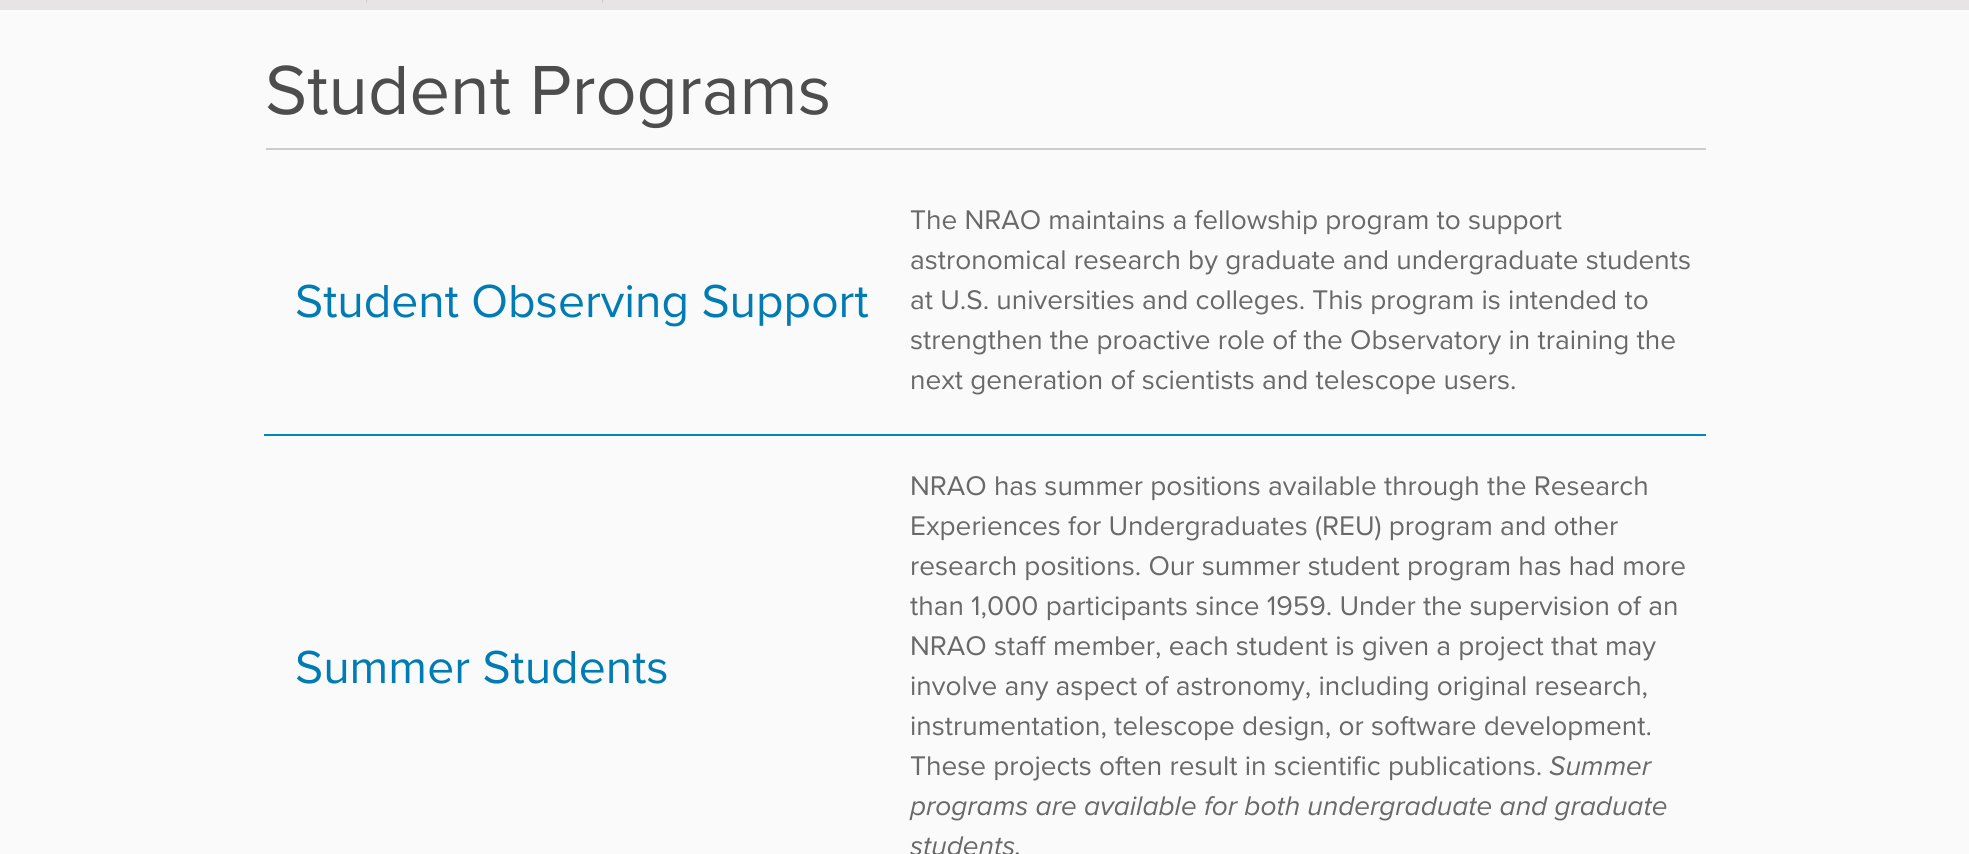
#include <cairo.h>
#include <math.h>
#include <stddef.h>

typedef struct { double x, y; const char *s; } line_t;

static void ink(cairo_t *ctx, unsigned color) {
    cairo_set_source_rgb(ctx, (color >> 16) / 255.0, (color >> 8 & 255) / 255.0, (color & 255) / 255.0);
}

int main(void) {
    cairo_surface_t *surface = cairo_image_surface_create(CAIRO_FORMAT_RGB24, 1969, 854);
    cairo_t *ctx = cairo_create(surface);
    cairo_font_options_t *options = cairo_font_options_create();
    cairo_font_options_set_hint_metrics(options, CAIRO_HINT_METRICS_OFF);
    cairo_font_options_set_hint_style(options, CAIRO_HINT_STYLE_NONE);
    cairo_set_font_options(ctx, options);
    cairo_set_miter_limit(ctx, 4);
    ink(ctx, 0xFAFAFA);
    cairo_paint(ctx);
    ink(ctx, 0xE6E4E4);
    cairo_rectangle(ctx, 0, 0, 1969, 10);
    cairo_fill(ctx);
    ink(ctx, 0xCCCCCC);
    cairo_new_path(ctx);
    cairo_move_to(ctx, 366, 4);
    cairo_line_to(ctx, 366, -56);
    cairo_line_to(ctx, 376, -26);
    cairo_close_path(ctx);
    cairo_fill(ctx);
    cairo_new_path(ctx);
    cairo_move_to(ctx, 602, 4);
    cairo_line_to(ctx, 602, -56);
    cairo_line_to(ctx, 612, -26);
    cairo_close_path(ctx);
    cairo_fill(ctx);
    cairo_rectangle(ctx, 266, 148, 1440, 2);
    cairo_fill(ctx);
    cairo_select_font_face(ctx, "Proxima Nova", CAIRO_FONT_SLANT_NORMAL, CAIRO_FONT_WEIGHT_NORMAL);
    cairo_set_font_size(ctx, 72);
    ink(ctx, 0x4D4D4D);
    cairo_move_to(ctx, 265, 114);
    cairo_show_text(ctx, "Student Programs");
    cairo_set_font_size(ctx, 48);
    ink(ctx, 0x007BB3);
    cairo_move_to(ctx, 295, 317);
    cairo_show_text(ctx, "Student Observing Support");
    cairo_set_font_size(ctx, 28);
    ink(ctx, 0x696969);
    {
        static const line_t items[] = {
            {910, 229, "The NRAO maintains a fellowship program to support"},
            {910, 269, "astronomical research by graduate and undergraduate students"},
            {910, 309, "at U.S. universities and colleges. This program is intended to"},
            {910, 349, "strengthen the proactive role of the Observatory in training the"},
            {910, 389, "next generation of scientists and telescope users."},
        };
        for (size_t i = 0; i < sizeof items / sizeof *items; i++) {
            cairo_move_to(ctx, items[i].x, items[i].y);
            cairo_show_text(ctx, items[i].s);
        }
    }
    ink(ctx, 0x0088BB);
    cairo_rectangle(ctx, 264, 434, 1442, 2);
    cairo_fill(ctx);
    cairo_set_font_size(ctx, 48);
    ink(ctx, 0x007BB3);
    cairo_move_to(ctx, 295, 683);
    cairo_show_text(ctx, "Summer Students");
    cairo_set_font_size(ctx, 28);
    ink(ctx, 0x696969);
    {
        static const line_t items[] = {
            {910, 495, "NRAO has summer positions available through the Research"},
            {910, 535, "Experiences for Undergraduates (REU) program and other"},
            {910, 575, "research positions. Our summer student program has had more"},
            {910, 615, "than 1,000 participants since 1959. Under the supervision of an"},
            {910, 655, "NRAO staff member, each student is given a project that may"},
            {910, 695, "involve any aspect of astronomy, including original research,"},
            {910, 735, "instrumentation, telescope design, or software development."},
            {910, 775, "These projects often result in scientific publications."},
        };
        for (size_t i = 0; i < sizeof items / sizeof *items; i++) {
            cairo_move_to(ctx, items[i].x, items[i].y);
            cairo_show_text(ctx, items[i].s);
        }
    }
    cairo_select_font_face(ctx, "Proxima Nova", CAIRO_FONT_SLANT_ITALIC, CAIRO_FONT_WEIGHT_NORMAL);
    {
        static const line_t items[] = {
            {1549, 775, "Summer"},
            {910, 815, "programs are available for both undergraduate and graduate"},
            {910, 855, "students."},
        };
        for (size_t i = 0; i < sizeof items / sizeof *items; i++) {
            cairo_move_to(ctx, items[i].x, items[i].y);
            cairo_show_text(ctx, items[i].s);
        }
    }
    cairo_surface_write_to_png(surface, "image.png");
    cairo_font_options_destroy(options);
    cairo_destroy(ctx);
    cairo_surface_destroy(surface);
    return 0;
}
